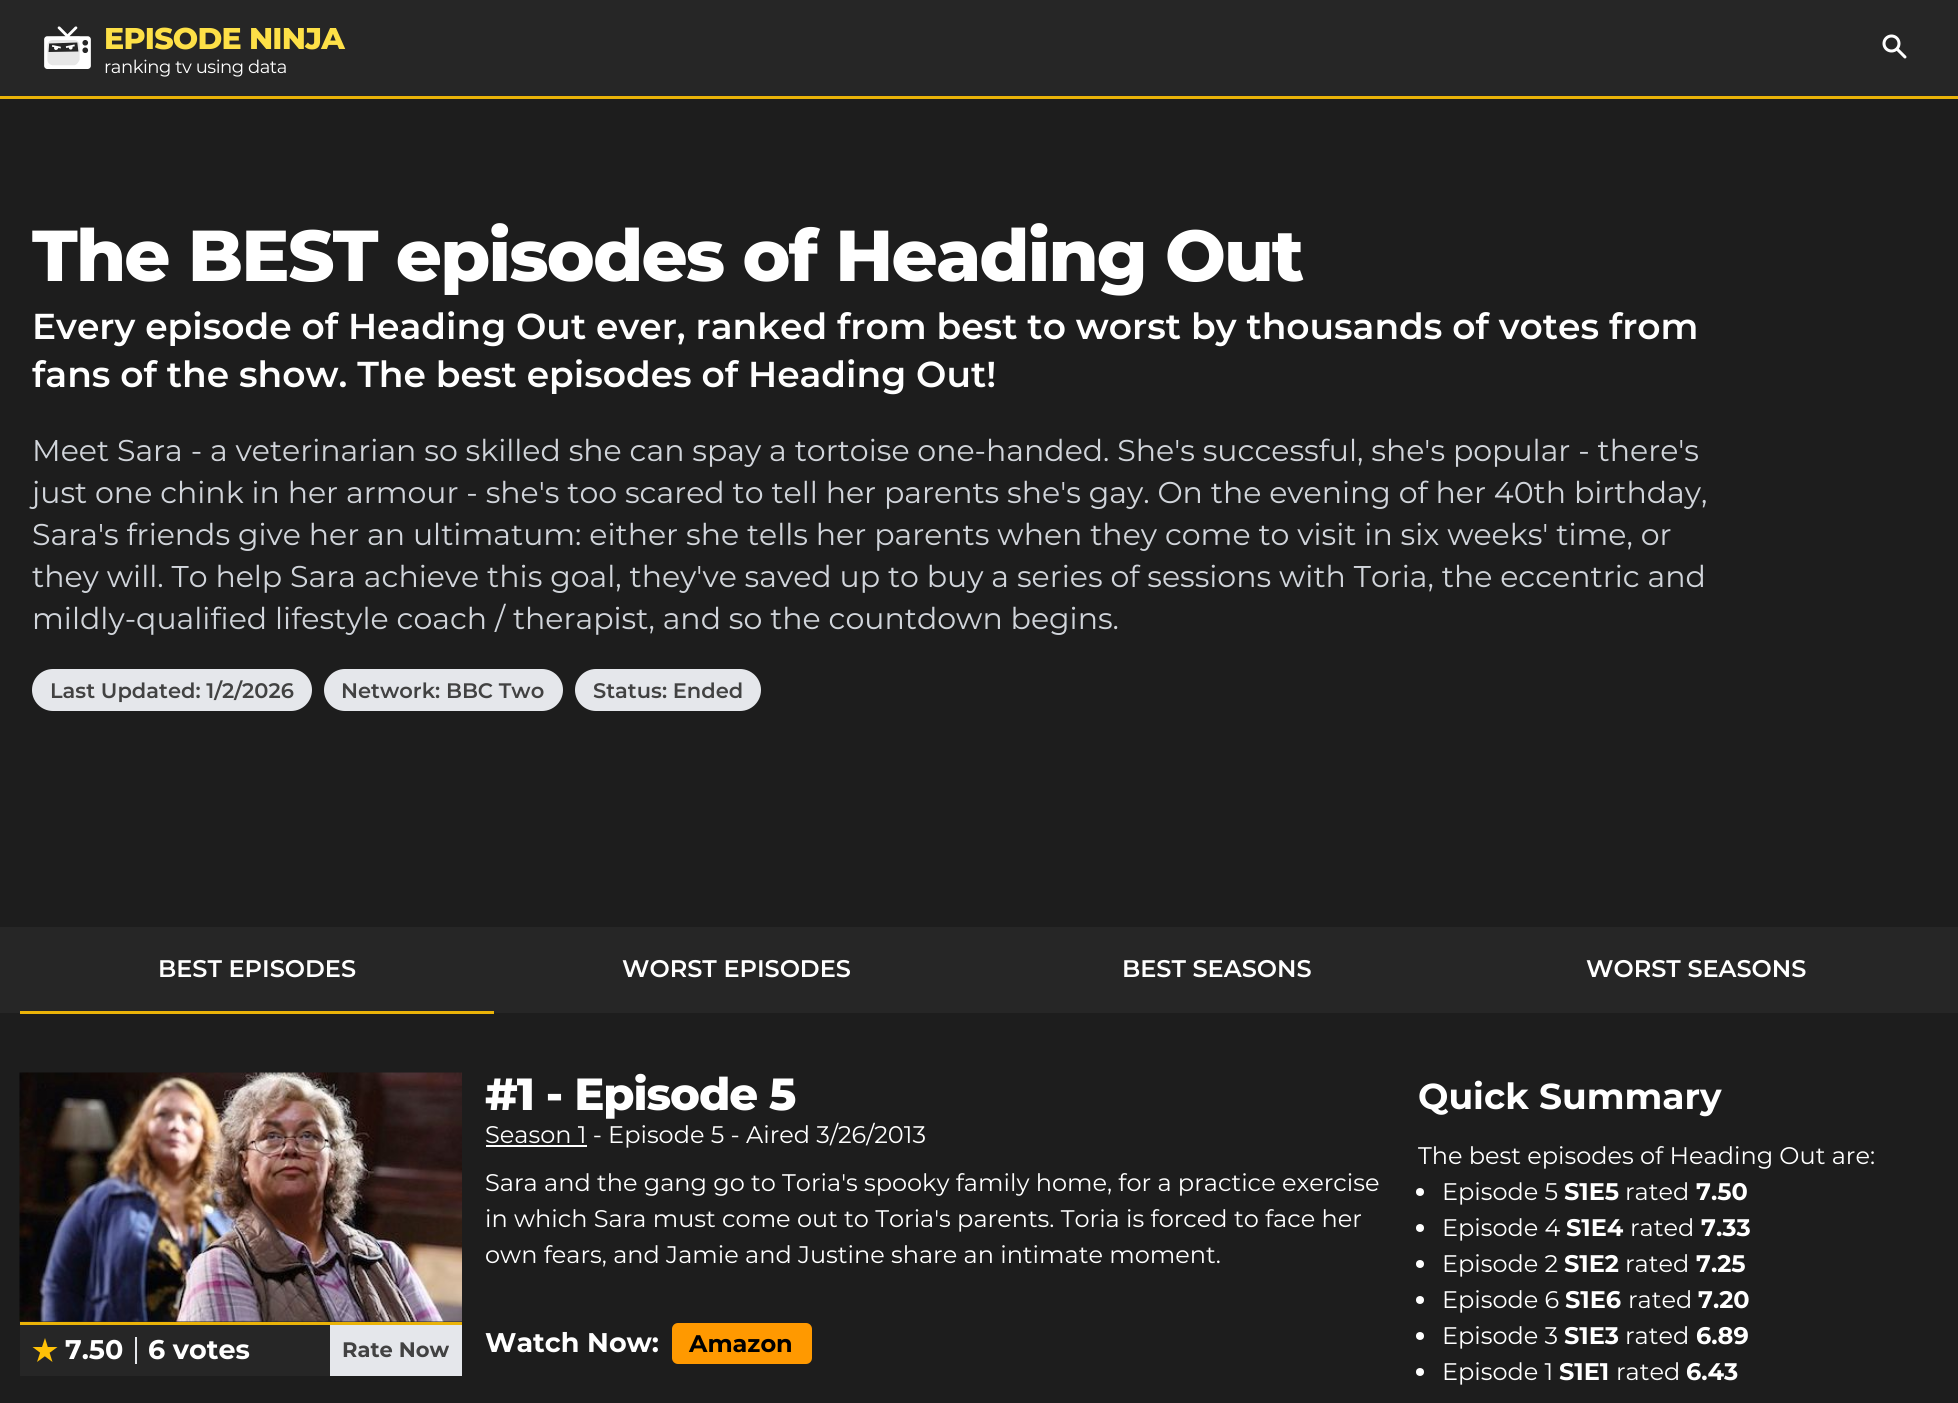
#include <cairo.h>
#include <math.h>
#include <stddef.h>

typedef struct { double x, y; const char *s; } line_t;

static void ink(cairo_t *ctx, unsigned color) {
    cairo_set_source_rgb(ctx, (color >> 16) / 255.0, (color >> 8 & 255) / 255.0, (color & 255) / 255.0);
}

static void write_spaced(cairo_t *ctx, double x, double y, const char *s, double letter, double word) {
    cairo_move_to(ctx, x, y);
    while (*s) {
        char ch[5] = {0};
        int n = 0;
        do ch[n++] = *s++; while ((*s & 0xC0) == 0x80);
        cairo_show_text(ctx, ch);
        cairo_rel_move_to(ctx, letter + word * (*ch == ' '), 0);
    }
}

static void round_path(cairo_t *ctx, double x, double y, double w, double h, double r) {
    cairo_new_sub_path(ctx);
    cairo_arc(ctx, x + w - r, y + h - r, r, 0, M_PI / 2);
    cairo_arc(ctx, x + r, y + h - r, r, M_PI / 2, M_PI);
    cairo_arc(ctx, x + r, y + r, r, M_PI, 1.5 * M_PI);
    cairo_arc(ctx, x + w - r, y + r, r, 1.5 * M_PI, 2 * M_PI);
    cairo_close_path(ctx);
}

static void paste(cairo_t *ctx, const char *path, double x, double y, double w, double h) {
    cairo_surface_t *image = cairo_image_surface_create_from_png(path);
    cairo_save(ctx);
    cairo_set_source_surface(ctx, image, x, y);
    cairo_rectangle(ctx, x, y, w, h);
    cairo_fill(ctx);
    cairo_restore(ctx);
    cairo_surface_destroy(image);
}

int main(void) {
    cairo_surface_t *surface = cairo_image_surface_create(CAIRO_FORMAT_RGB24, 1958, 1403);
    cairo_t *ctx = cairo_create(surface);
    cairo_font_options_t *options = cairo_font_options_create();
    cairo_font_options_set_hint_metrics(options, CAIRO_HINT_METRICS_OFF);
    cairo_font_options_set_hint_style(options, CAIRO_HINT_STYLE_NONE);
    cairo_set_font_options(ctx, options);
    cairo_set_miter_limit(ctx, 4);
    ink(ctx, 0x262626);
    cairo_paint(ctx);
    ink(ctx, 0xEAB308);
    cairo_rectangle(ctx, 0, 96, 1958, 3);
    cairo_fill(ctx);
    paste(ctx, "media/1.png", 44, 26, 47, 43);
    cairo_select_font_face(ctx, "Montserrat ExtraBold", CAIRO_FONT_SLANT_NORMAL, CAIRO_FONT_WEIGHT_NORMAL);
    cairo_set_font_size(ctx, 30);
    ink(ctx, 0xFDE047);
    write_spaced(ctx, 104, 49, "EPISODE NINJA", -0.75, 0);
    cairo_select_font_face(ctx, "Montserrat", CAIRO_FONT_SLANT_NORMAL, CAIRO_FONT_WEIGHT_NORMAL);
    cairo_set_font_size(ctx, 18);
    ink(ctx, 0xFFFFFF);
    write_spaced(ctx, 104, 73, "ranking tv using data", -0.45, 0);
    paste(ctx, "media/2.png", 1882, 34, 25, 25);
    ink(ctx, 0x1D1D1D);
    cairo_rectangle(ctx, 0, 99, 1958, 828);
    cairo_fill(ctx);
    cairo_select_font_face(ctx, "Montserrat ExtraBold", CAIRO_FONT_SLANT_NORMAL, CAIRO_FONT_WEIGHT_NORMAL);
    cairo_set_font_size(ctx, 72);
    ink(ctx, 0xFFFFFF);
    write_spaced(ctx, 32, 281, "The BEST episodes of Heading Out", -1.8, 0);
    cairo_select_font_face(ctx, "Montserrat SemiBold", CAIRO_FONT_SLANT_NORMAL, CAIRO_FONT_WEIGHT_NORMAL);
    cairo_set_font_size(ctx, 36);
    cairo_move_to(ctx, 32, 339);
    cairo_show_text(ctx, "Every episode of Heading Out ever, ranked from best to worst by thousands of votes from");
    cairo_move_to(ctx, 32, 387);
    cairo_show_text(ctx, "fans of the show. The best episodes of Heading Out!");
    cairo_select_font_face(ctx, "Montserrat", CAIRO_FONT_SLANT_NORMAL, CAIRO_FONT_WEIGHT_NORMAL);
    cairo_set_font_size(ctx, 30);
    ink(ctx, 0xD1D5DB);
    {
        static const line_t items[] = {
            {32, 461, "Meet Sara - a veterinarian so skilled she can spay a tortoise one-handed. She's successful, she's popular - there's"},
            {32, 503, "just one chink in her armour - she's too scared to tell her parents she's gay. On the evening of her 40th birthday,"},
            {32, 545, "Sara's friends give her an ultimatum: either she tells her parents when they come to visit in six weeks' time, or"},
            {32, 587, "they will. To help Sara achieve this goal, they've saved up to buy a series of sessions with Toria, the eccentric and"},
            {32, 629, "mildly-qualified lifestyle coach / therapist, and so the countdown begins."},
        };
        for (size_t i = 0; i < sizeof items / sizeof *items; i++) {
            cairo_move_to(ctx, items[i].x, items[i].y);
            cairo_show_text(ctx, items[i].s);
        }
    }
    ink(ctx, 0xE5E7EB);
    round_path(ctx, 32, 669, 280, 42, 21);
    cairo_fill(ctx);
    cairo_select_font_face(ctx, "Montserrat SemiBold", CAIRO_FONT_SLANT_NORMAL, CAIRO_FONT_WEIGHT_NORMAL);
    cairo_set_font_size(ctx, 21);
    ink(ctx, 0x424242);
    cairo_move_to(ctx, 50, 698);
    cairo_show_text(ctx, "Last Updated: 1/2/2026");
    ink(ctx, 0xE5E7EB);
    round_path(ctx, 324, 669, 239, 42, 21);
    cairo_fill(ctx);
    ink(ctx, 0x424242);
    cairo_move_to(ctx, 341, 698);
    cairo_show_text(ctx, "Network: BBC Two");
    ink(ctx, 0xE5E7EB);
    round_path(ctx, 575, 669, 186, 42, 21);
    cairo_fill(ctx);
    ink(ctx, 0x424242);
    cairo_move_to(ctx, 593, 698);
    cairo_show_text(ctx, "Status: Ended");
    ink(ctx, 0x1D1D1D);
    cairo_rectangle(ctx, 0, 1013, 1958, 390);
    cairo_fill(ctx);
    ink(ctx, 0xEAB308);
    cairo_rectangle(ctx, 20, 1011, 474, 3);
    cairo_fill(ctx);
    cairo_set_font_size(ctx, 24);
    ink(ctx, 0xFFFFFF);
    {
        static const line_t items[] = {
            {158, 977, "BEST EPISODES"},
            {622, 977, "WORST EPISODES"},
            {1122, 977, "BEST SEASONS"},
            {1586, 977, "WORST SEASONS"},
        };
        for (size_t i = 0; i < sizeof items / sizeof *items; i++) {
            cairo_move_to(ctx, items[i].x, items[i].y);
            cairo_show_text(ctx, items[i].s);
        }
    }
    ink(ctx, 0x262626);
    cairo_rectangle(ctx, 20, 1321, 442, 1);
    cairo_fill(ctx);
    ink(ctx, 0xEAB308);
    cairo_rectangle(ctx, 20, 1322, 442, 3);
    cairo_fill(ctx);
    paste(ctx, "media/3.png", 19, 1072, 443, 250);
    ink(ctx, 0x262626);
    cairo_rectangle(ctx, 20, 1325, 310, 51);
    cairo_fill(ctx);
    ink(ctx, 0xFFC107);
    cairo_new_path(ctx);
    cairo_move_to(ctx, 37, 1362);
    cairo_line_to(ctx, 45, 1338);
    cairo_line_to(ctx, 52.5, 1362);
    cairo_line_to(ctx, 32.5, 1347);
    cairo_line_to(ctx, 57.5, 1347);
    cairo_fill(ctx);
    ink(ctx, 0xE5E7EB);
    cairo_rectangle(ctx, 135, 1337, 2, 27);
    cairo_fill(ctx);
    cairo_select_font_face(ctx, "Montserrat", CAIRO_FONT_SLANT_NORMAL, CAIRO_FONT_WEIGHT_BOLD);
    cairo_set_font_size(ctx, 27);
    ink(ctx, 0xFFFFFF);
    cairo_move_to(ctx, 65, 1359);
    cairo_show_text(ctx, "7.50");
    cairo_move_to(ctx, 148, 1359);
    cairo_show_text(ctx, "6 votes");
    ink(ctx, 0xE5E7EB);
    cairo_rectangle(ctx, 330, 1325, 132, 51);
    cairo_fill(ctx);
    cairo_set_font_size(ctx, 21);
    ink(ctx, 0x424242);
    cairo_move_to(ctx, 342, 1357);
    cairo_show_text(ctx, "Rate Now");
    cairo_select_font_face(ctx, "Montserrat ExtraBold", CAIRO_FONT_SLANT_NORMAL, CAIRO_FONT_WEIGHT_NORMAL);
    cairo_set_font_size(ctx, 45);
    ink(ctx, 0xFFFFFF);
    write_spaced(ctx, 485, 1110, "#1 - Episode 5", -1.1, 0);
    cairo_rectangle(ctx, 486, 1145, 101, 2);
    cairo_fill(ctx);
    cairo_select_font_face(ctx, "Montserrat", CAIRO_FONT_SLANT_NORMAL, CAIRO_FONT_WEIGHT_NORMAL);
    cairo_set_font_size(ctx, 24);
    {
        static const line_t items[] = {
            {485, 1143, "Season 1 - Episode 5 - Aired 3/26/2013"},
            {485, 1191, "Sara and the gang go to Toria's spooky family home, for a practice exercise"},
            {485, 1227, "in which Sara must come out to Toria's parents. Toria is forced to face her"},
            {485, 1263, "own fears, and Jamie and Justine share an intimate moment."},
        };
        for (size_t i = 0; i < sizeof items / sizeof *items; i++) {
            cairo_move_to(ctx, items[i].x, items[i].y);
            cairo_show_text(ctx, items[i].s);
        }
    }
    cairo_select_font_face(ctx, "Montserrat", CAIRO_FONT_SLANT_NORMAL, CAIRO_FONT_WEIGHT_BOLD);
    cairo_set_font_size(ctx, 27);
    cairo_move_to(ctx, 485, 1352);
    cairo_show_text(ctx, "Watch Now:");
    ink(ctx, 0xFF9900);
    round_path(ctx, 672, 1323, 140, 41, 6);
    cairo_fill(ctx);
    cairo_set_font_size(ctx, 24);
    ink(ctx, 0x000000);
    cairo_move_to(ctx, 689, 1352);
    cairo_show_text(ctx, "Amazon");
    cairo_set_font_size(ctx, 36);
    ink(ctx, 0xFFFFFF);
    cairo_move_to(ctx, 1418, 1109);
    cairo_show_text(ctx, "Quick Summary");
    cairo_select_font_face(ctx, "Montserrat", CAIRO_FONT_SLANT_NORMAL, CAIRO_FONT_WEIGHT_NORMAL);
    cairo_set_font_size(ctx, 24);
    cairo_move_to(ctx, 1418, 1164);
    cairo_show_text(ctx, "The best episodes of Heading Out are:");
    cairo_new_path(ctx);
    cairo_arc(ctx, 1420, 1192, 4, 0, 2 * M_PI);
    cairo_fill(ctx);
    cairo_move_to(ctx, 1442, 1200);
    cairo_show_text(ctx, "Episode 5");
    cairo_select_font_face(ctx, "Montserrat", CAIRO_FONT_SLANT_NORMAL, CAIRO_FONT_WEIGHT_BOLD);
    cairo_move_to(ctx, 1564, 1200);
    cairo_show_text(ctx, "S1E5");
    cairo_select_font_face(ctx, "Montserrat", CAIRO_FONT_SLANT_NORMAL, CAIRO_FONT_WEIGHT_NORMAL);
    cairo_move_to(ctx, 1625, 1200);
    cairo_show_text(ctx, "rated");
    cairo_select_font_face(ctx, "Montserrat", CAIRO_FONT_SLANT_NORMAL, CAIRO_FONT_WEIGHT_BOLD);
    cairo_move_to(ctx, 1696, 1200);
    cairo_show_text(ctx, "7.50");
    cairo_new_path(ctx);
    cairo_arc(ctx, 1420, 1228, 4, 0, 2 * M_PI);
    cairo_fill(ctx);
    cairo_select_font_face(ctx, "Montserrat", CAIRO_FONT_SLANT_NORMAL, CAIRO_FONT_WEIGHT_NORMAL);
    cairo_move_to(ctx, 1442, 1236);
    cairo_show_text(ctx, "Episode 4");
    cairo_select_font_face(ctx, "Montserrat", CAIRO_FONT_SLANT_NORMAL, CAIRO_FONT_WEIGHT_BOLD);
    cairo_move_to(ctx, 1566, 1236);
    cairo_show_text(ctx, "S1E4");
    cairo_select_font_face(ctx, "Montserrat", CAIRO_FONT_SLANT_NORMAL, CAIRO_FONT_WEIGHT_NORMAL);
    cairo_move_to(ctx, 1630, 1236);
    cairo_show_text(ctx, "rated");
    cairo_select_font_face(ctx, "Montserrat", CAIRO_FONT_SLANT_NORMAL, CAIRO_FONT_WEIGHT_BOLD);
    cairo_move_to(ctx, 1701, 1236);
    cairo_show_text(ctx, "7.33");
    cairo_new_path(ctx);
    cairo_arc(ctx, 1420, 1264, 4, 0, 2 * M_PI);
    cairo_fill(ctx);
    cairo_select_font_face(ctx, "Montserrat", CAIRO_FONT_SLANT_NORMAL, CAIRO_FONT_WEIGHT_NORMAL);
    cairo_move_to(ctx, 1442, 1272);
    cairo_show_text(ctx, "Episode 2");
    cairo_select_font_face(ctx, "Montserrat", CAIRO_FONT_SLANT_NORMAL, CAIRO_FONT_WEIGHT_BOLD);
    cairo_move_to(ctx, 1564, 1272);
    cairo_show_text(ctx, "S1E2");
    cairo_select_font_face(ctx, "Montserrat", CAIRO_FONT_SLANT_NORMAL, CAIRO_FONT_WEIGHT_NORMAL);
    cairo_move_to(ctx, 1625, 1272);
    cairo_show_text(ctx, "rated");
    cairo_select_font_face(ctx, "Montserrat", CAIRO_FONT_SLANT_NORMAL, CAIRO_FONT_WEIGHT_BOLD);
    cairo_move_to(ctx, 1696, 1272);
    cairo_show_text(ctx, "7.25");
    cairo_new_path(ctx);
    cairo_arc(ctx, 1420, 1300, 4, 0, 2 * M_PI);
    cairo_fill(ctx);
    cairo_select_font_face(ctx, "Montserrat", CAIRO_FONT_SLANT_NORMAL, CAIRO_FONT_WEIGHT_NORMAL);
    cairo_move_to(ctx, 1442, 1308);
    cairo_show_text(ctx, "Episode 6");
    cairo_select_font_face(ctx, "Montserrat", CAIRO_FONT_SLANT_NORMAL, CAIRO_FONT_WEIGHT_BOLD);
    cairo_move_to(ctx, 1565, 1308);
    cairo_show_text(ctx, "S1E6");
    cairo_select_font_face(ctx, "Montserrat", CAIRO_FONT_SLANT_NORMAL, CAIRO_FONT_WEIGHT_NORMAL);
    cairo_move_to(ctx, 1628, 1308);
    cairo_show_text(ctx, "rated");
    cairo_select_font_face(ctx, "Montserrat", CAIRO_FONT_SLANT_NORMAL, CAIRO_FONT_WEIGHT_BOLD);
    cairo_move_to(ctx, 1698, 1308);
    cairo_show_text(ctx, "7.20");
    cairo_new_path(ctx);
    cairo_arc(ctx, 1420, 1336, 4, 0, 2 * M_PI);
    cairo_fill(ctx);
    cairo_select_font_face(ctx, "Montserrat", CAIRO_FONT_SLANT_NORMAL, CAIRO_FONT_WEIGHT_NORMAL);
    cairo_move_to(ctx, 1442, 1344);
    cairo_show_text(ctx, "Episode 3");
    cairo_select_font_face(ctx, "Montserrat", CAIRO_FONT_SLANT_NORMAL, CAIRO_FONT_WEIGHT_BOLD);
    cairo_move_to(ctx, 1564, 1344);
    cairo_show_text(ctx, "S1E3");
    cairo_select_font_face(ctx, "Montserrat", CAIRO_FONT_SLANT_NORMAL, CAIRO_FONT_WEIGHT_NORMAL);
    cairo_move_to(ctx, 1625, 1344);
    cairo_show_text(ctx, "rated");
    cairo_select_font_face(ctx, "Montserrat", CAIRO_FONT_SLANT_NORMAL, CAIRO_FONT_WEIGHT_BOLD);
    cairo_move_to(ctx, 1696, 1344);
    cairo_show_text(ctx, "6.89");
    cairo_new_path(ctx);
    cairo_arc(ctx, 1420, 1372, 4, 0, 2 * M_PI);
    cairo_fill(ctx);
    cairo_select_font_face(ctx, "Montserrat", CAIRO_FONT_SLANT_NORMAL, CAIRO_FONT_WEIGHT_NORMAL);
    cairo_move_to(ctx, 1442, 1380);
    cairo_show_text(ctx, "Episode 1");
    cairo_select_font_face(ctx, "Montserrat", CAIRO_FONT_SLANT_NORMAL, CAIRO_FONT_WEIGHT_BOLD);
    cairo_move_to(ctx, 1559, 1380);
    cairo_show_text(ctx, "S1E1");
    cairo_select_font_face(ctx, "Montserrat", CAIRO_FONT_SLANT_NORMAL, CAIRO_FONT_WEIGHT_NORMAL);
    cairo_move_to(ctx, 1616, 1380);
    cairo_show_text(ctx, "rated");
    cairo_select_font_face(ctx, "Montserrat", CAIRO_FONT_SLANT_NORMAL, CAIRO_FONT_WEIGHT_BOLD);
    cairo_move_to(ctx, 1686, 1380);
    cairo_show_text(ctx, "6.43");
    cairo_surface_write_to_png(surface, "image.png");
    cairo_font_options_destroy(options);
    cairo_destroy(ctx);
    cairo_surface_destroy(surface);
    return 0;
}
